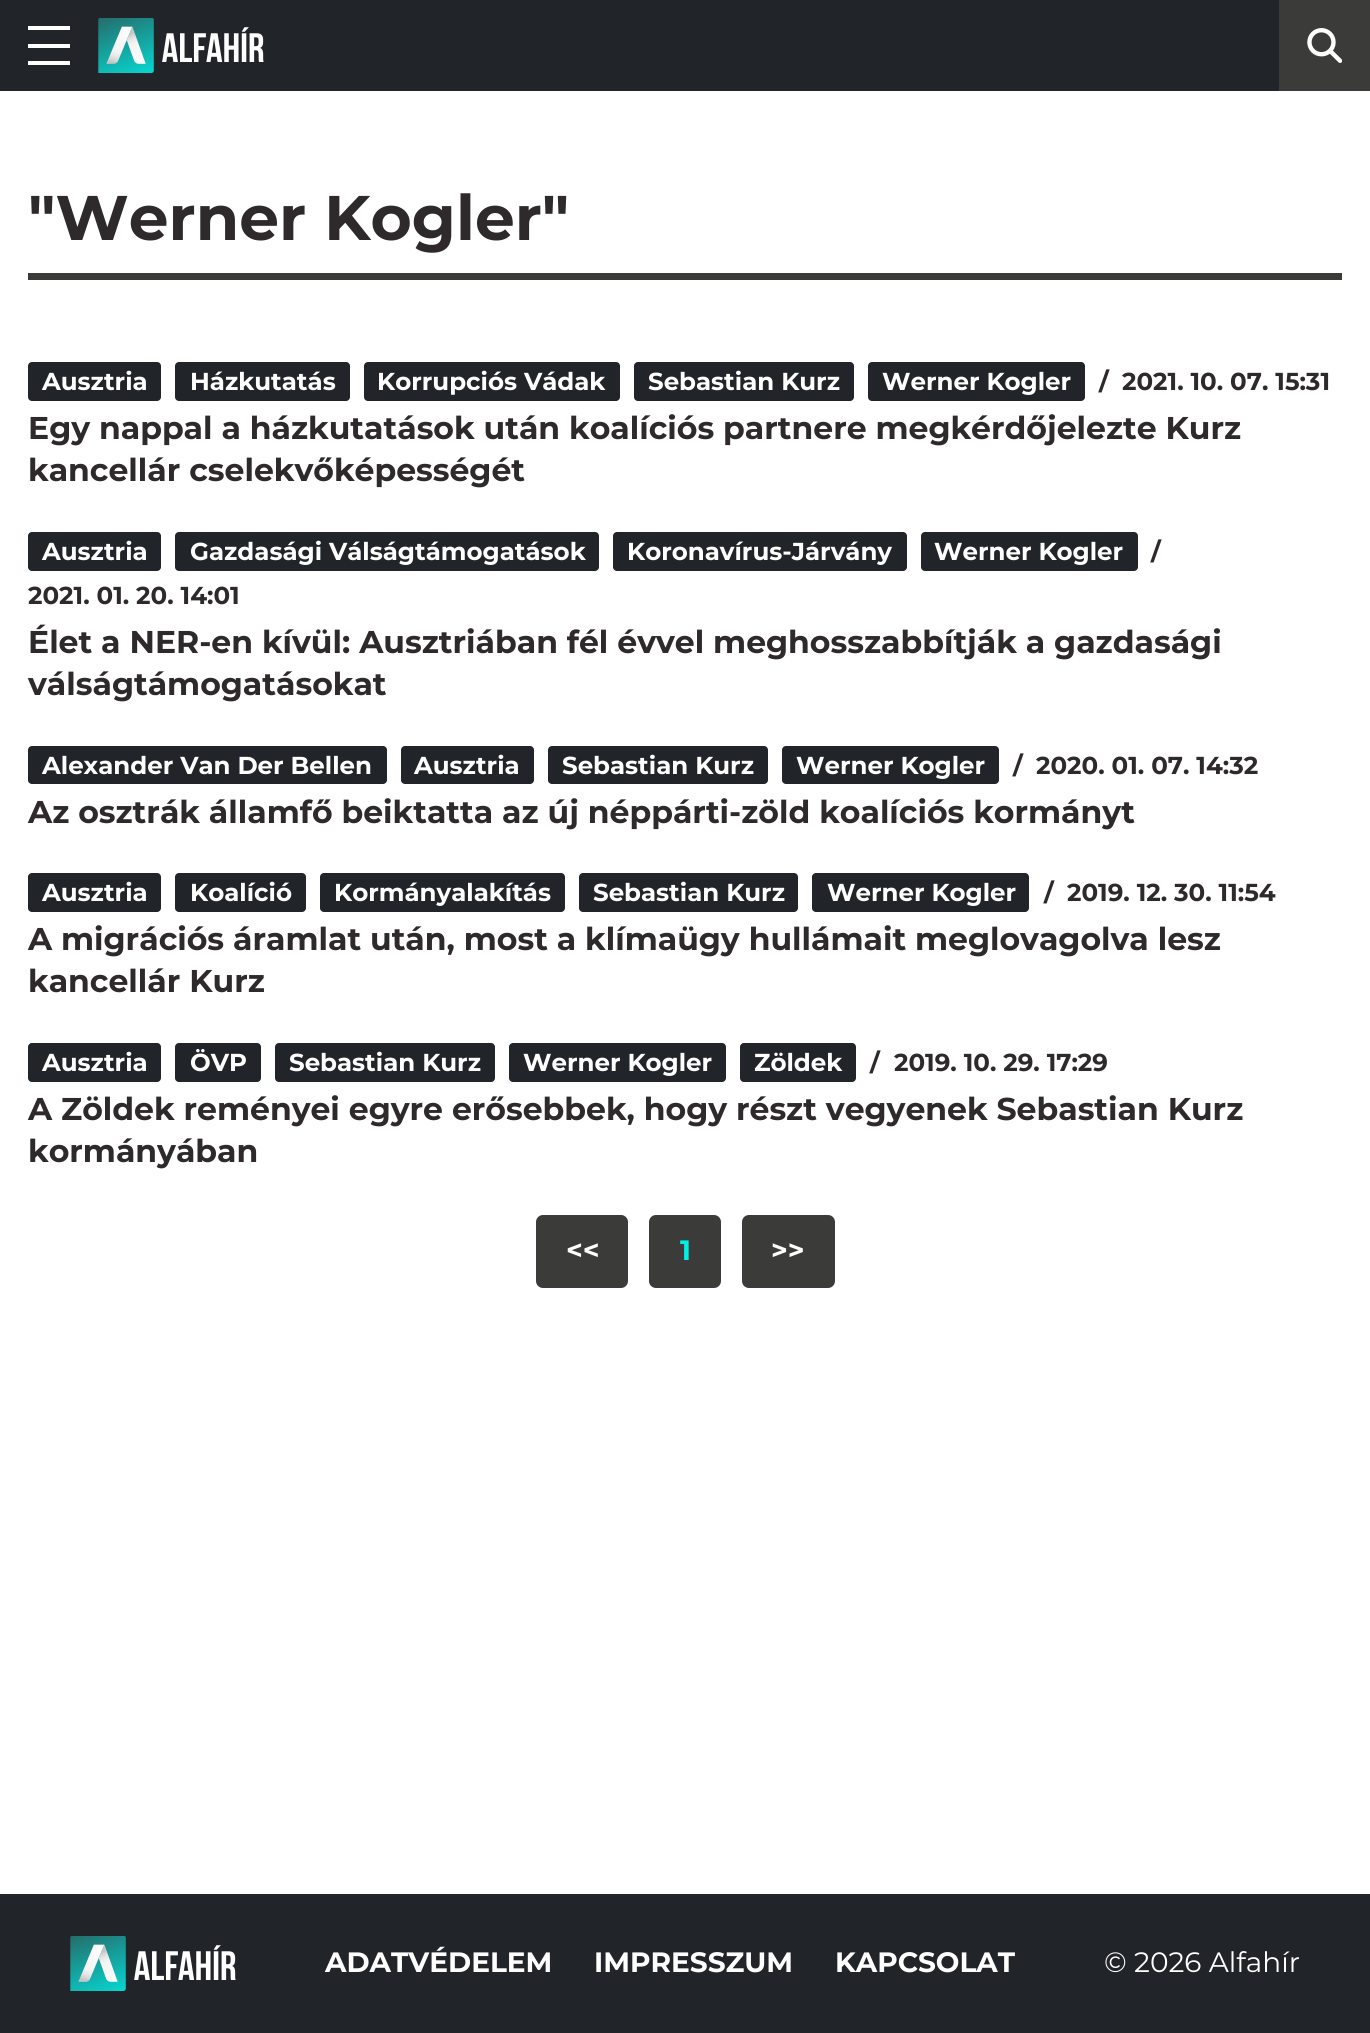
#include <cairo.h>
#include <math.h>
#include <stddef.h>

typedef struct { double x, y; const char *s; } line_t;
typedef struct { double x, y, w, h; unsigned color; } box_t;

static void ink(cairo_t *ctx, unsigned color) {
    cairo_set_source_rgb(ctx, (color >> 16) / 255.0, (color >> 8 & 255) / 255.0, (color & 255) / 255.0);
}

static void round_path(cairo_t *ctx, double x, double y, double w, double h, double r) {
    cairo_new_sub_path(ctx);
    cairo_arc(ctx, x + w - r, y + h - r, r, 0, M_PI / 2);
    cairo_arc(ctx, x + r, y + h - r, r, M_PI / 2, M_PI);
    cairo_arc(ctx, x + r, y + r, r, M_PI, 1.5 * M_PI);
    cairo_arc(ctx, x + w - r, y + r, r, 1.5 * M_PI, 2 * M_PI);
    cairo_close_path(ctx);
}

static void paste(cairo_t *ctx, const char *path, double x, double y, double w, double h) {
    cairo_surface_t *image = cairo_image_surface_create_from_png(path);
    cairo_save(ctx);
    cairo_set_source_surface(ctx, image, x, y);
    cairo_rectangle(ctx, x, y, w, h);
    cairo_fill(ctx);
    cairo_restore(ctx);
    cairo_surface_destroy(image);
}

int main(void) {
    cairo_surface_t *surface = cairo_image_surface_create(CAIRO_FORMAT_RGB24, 1370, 2033);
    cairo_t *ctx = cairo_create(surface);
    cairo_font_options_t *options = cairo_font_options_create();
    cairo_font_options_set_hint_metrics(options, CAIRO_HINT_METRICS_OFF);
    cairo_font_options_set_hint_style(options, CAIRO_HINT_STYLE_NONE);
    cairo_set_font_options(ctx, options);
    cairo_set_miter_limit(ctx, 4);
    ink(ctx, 0xFFFFFF);
    cairo_paint(ctx);
    {
        static const box_t items[] = {
            {0, 0, 1279, 91, 0x212529},
            {28, 26, 42, 4, 0xFFFFFF},
            {28, 44, 42, 4, 0xFFFFFF},
            {28, 61, 42, 4, 0xFFFFFF},
        };
        for (size_t i = 0; i < sizeof items / sizeof *items; i++) {
            ink(ctx, items[i].color);
            cairo_rectangle(ctx, items[i].x, items[i].y, items[i].w, items[i].h);
            cairo_fill(ctx);
        }
    }
    paste(ctx, "media/1.png", 98, 18, 166, 55);
    ink(ctx, 0x3B3B3A);
    cairo_rectangle(ctx, 1279, 0, 91, 91);
    cairo_fill(ctx);
    paste(ctx, "media/2.png", 1307, 28, 35, 35);
    cairo_rectangle(ctx, 28, 273, 1314, 7);
    cairo_fill(ctx);
    cairo_select_font_face(ctx, "Montserrat", CAIRO_FONT_SLANT_NORMAL, CAIRO_FONT_WEIGHT_BOLD);
    cairo_set_font_size(ctx, 63);
    ink(ctx, 0x2E292A);
    cairo_move_to(ctx, 28, 240);
    cairo_show_text(ctx, "\"Werner Kogler\"");
    ink(ctx, 0x212529);
    round_path(ctx, 28, 362, 133, 39, 4);
    cairo_fill(ctx);
    cairo_set_font_size(ctx, 24.5);
    ink(ctx, 0xFFFFFF);
    cairo_move_to(ctx, 42, 390);
    cairo_show_text(ctx, "Ausztria");
    ink(ctx, 0x212529);
    round_path(ctx, 175, 362, 175, 39, 4);
    cairo_fill(ctx);
    ink(ctx, 0xFFFFFF);
    cairo_move_to(ctx, 190, 390);
    cairo_show_text(ctx, "Házkutatás");
    ink(ctx, 0x212529);
    round_path(ctx, 364, 362, 256, 39, 4);
    cairo_fill(ctx);
    ink(ctx, 0xFFFFFF);
    cairo_move_to(ctx, 377, 390);
    cairo_show_text(ctx, "Korrupciós Vádak");
    ink(ctx, 0x212529);
    round_path(ctx, 634, 362, 220, 39, 4);
    cairo_fill(ctx);
    ink(ctx, 0xFFFFFF);
    cairo_move_to(ctx, 648, 390);
    cairo_show_text(ctx, "Sebastian Kurz");
    ink(ctx, 0x212529);
    round_path(ctx, 868, 362, 217, 39, 4);
    cairo_fill(ctx);
    ink(ctx, 0xFFFFFF);
    cairo_move_to(ctx, 882, 390);
    cairo_show_text(ctx, "Werner Kogler");
    ink(ctx, 0x2E292A);
    cairo_move_to(ctx, 1099, 390);
    cairo_show_text(ctx, "/");
    cairo_move_to(ctx, 1122, 390);
    cairo_show_text(ctx, "2021. 10. 07. 15:31");
    cairo_set_font_size(ctx, 31.5);
    cairo_move_to(ctx, 28, 439);
    cairo_show_text(ctx, "Egy nappal a házkutatások után koalíciós partnere megkérdőjelezte Kurz");
    cairo_move_to(ctx, 28, 481);
    cairo_show_text(ctx, "kancellár cselekvőképességét");
    ink(ctx, 0x212529);
    round_path(ctx, 28, 532, 133, 39, 4);
    cairo_fill(ctx);
    cairo_set_font_size(ctx, 24.5);
    ink(ctx, 0xFFFFFF);
    cairo_move_to(ctx, 42, 560);
    cairo_show_text(ctx, "Ausztria");
    ink(ctx, 0x212529);
    round_path(ctx, 175, 532, 424, 39, 4);
    cairo_fill(ctx);
    ink(ctx, 0xFFFFFF);
    cairo_move_to(ctx, 190, 560);
    cairo_show_text(ctx, "Gazdasági Válságtámogatások");
    ink(ctx, 0x212529);
    round_path(ctx, 613, 532, 294, 39, 4);
    cairo_fill(ctx);
    ink(ctx, 0xFFFFFF);
    cairo_move_to(ctx, 627, 560);
    cairo_show_text(ctx, "Koronavírus-Járvány");
    ink(ctx, 0x212529);
    round_path(ctx, 921, 532, 217, 39, 4);
    cairo_fill(ctx);
    ink(ctx, 0xFFFFFF);
    cairo_move_to(ctx, 934, 560);
    cairo_show_text(ctx, "Werner Kogler");
    ink(ctx, 0x2E292A);
    cairo_move_to(ctx, 1151, 560);
    cairo_show_text(ctx, "/");
    cairo_move_to(ctx, 28, 604);
    cairo_show_text(ctx, "2021. 01. 20. 14:01");
    cairo_set_font_size(ctx, 31.5);
    cairo_move_to(ctx, 28, 653);
    cairo_show_text(ctx, "Élet a NER-en kívül: Ausztriában fél évvel meghosszabbítják a gazdasági");
    cairo_move_to(ctx, 28, 695);
    cairo_show_text(ctx, "válságtámogatásokat");
    ink(ctx, 0x212529);
    round_path(ctx, 28, 746, 359, 38, 4);
    cairo_fill(ctx);
    cairo_set_font_size(ctx, 24.5);
    ink(ctx, 0xFFFFFF);
    cairo_move_to(ctx, 42, 774);
    cairo_show_text(ctx, "Alexander Van Der Bellen");
    ink(ctx, 0x212529);
    round_path(ctx, 401, 746, 133, 38, 4);
    cairo_fill(ctx);
    ink(ctx, 0xFFFFFF);
    cairo_move_to(ctx, 414, 774);
    cairo_show_text(ctx, "Ausztria");
    ink(ctx, 0x212529);
    round_path(ctx, 548, 746, 220, 38, 4);
    cairo_fill(ctx);
    ink(ctx, 0xFFFFFF);
    cairo_move_to(ctx, 562, 774);
    cairo_show_text(ctx, "Sebastian Kurz");
    ink(ctx, 0x212529);
    round_path(ctx, 782, 746, 217, 38, 4);
    cairo_fill(ctx);
    ink(ctx, 0xFFFFFF);
    cairo_move_to(ctx, 796, 774);
    cairo_show_text(ctx, "Werner Kogler");
    ink(ctx, 0x2E292A);
    cairo_move_to(ctx, 1013, 774);
    cairo_show_text(ctx, "/");
    cairo_move_to(ctx, 1036, 774);
    cairo_show_text(ctx, "2020. 01. 07. 14:32");
    cairo_set_font_size(ctx, 31.5);
    cairo_move_to(ctx, 28, 823);
    cairo_show_text(ctx, "Az osztrák államfő beiktatta az új néppárti-zöld koalíciós kormányt");
    ink(ctx, 0x212529);
    round_path(ctx, 28, 873, 133, 39, 4);
    cairo_fill(ctx);
    cairo_set_font_size(ctx, 24.5);
    ink(ctx, 0xFFFFFF);
    cairo_move_to(ctx, 42, 901);
    cairo_show_text(ctx, "Ausztria");
    ink(ctx, 0x212529);
    round_path(ctx, 175, 873, 131, 39, 4);
    cairo_fill(ctx);
    ink(ctx, 0xFFFFFF);
    cairo_move_to(ctx, 190, 901);
    cairo_show_text(ctx, "Koalíció");
    ink(ctx, 0x212529);
    round_path(ctx, 320, 873, 245, 39, 4);
    cairo_fill(ctx);
    ink(ctx, 0xFFFFFF);
    cairo_move_to(ctx, 334, 901);
    cairo_show_text(ctx, "Kormányalakítás");
    ink(ctx, 0x212529);
    round_path(ctx, 579, 873, 219, 39, 4);
    cairo_fill(ctx);
    ink(ctx, 0xFFFFFF);
    cairo_move_to(ctx, 593, 901);
    cairo_show_text(ctx, "Sebastian Kurz");
    ink(ctx, 0x212529);
    round_path(ctx, 812, 873, 217, 39, 4);
    cairo_fill(ctx);
    ink(ctx, 0xFFFFFF);
    cairo_move_to(ctx, 827, 901);
    cairo_show_text(ctx, "Werner Kogler");
    ink(ctx, 0x2E292A);
    cairo_move_to(ctx, 1044, 901);
    cairo_show_text(ctx, "/");
    cairo_move_to(ctx, 1067, 901);
    cairo_show_text(ctx, "2019. 12. 30. 11:54");
    cairo_set_font_size(ctx, 31.5);
    cairo_move_to(ctx, 28, 950);
    cairo_show_text(ctx, "A migrációs áramlat után, most a klímaügy hullámait meglovagolva lesz");
    cairo_move_to(ctx, 28, 992);
    cairo_show_text(ctx, "kancellár Kurz");
    ink(ctx, 0x212529);
    round_path(ctx, 28, 1043, 133, 39, 4);
    cairo_fill(ctx);
    cairo_set_font_size(ctx, 24.5);
    ink(ctx, 0xFFFFFF);
    cairo_move_to(ctx, 42, 1071);
    cairo_show_text(ctx, "Ausztria");
    ink(ctx, 0x212529);
    round_path(ctx, 175, 1043, 86, 39, 4);
    cairo_fill(ctx);
    ink(ctx, 0xFFFFFF);
    cairo_move_to(ctx, 190, 1071);
    cairo_show_text(ctx, "ÖVP");
    ink(ctx, 0x212529);
    round_path(ctx, 275, 1043, 220, 39, 4);
    cairo_fill(ctx);
    ink(ctx, 0xFFFFFF);
    cairo_move_to(ctx, 289, 1071);
    cairo_show_text(ctx, "Sebastian Kurz");
    ink(ctx, 0x212529);
    round_path(ctx, 509, 1043, 217, 39, 4);
    cairo_fill(ctx);
    ink(ctx, 0xFFFFFF);
    cairo_move_to(ctx, 523, 1071);
    cairo_show_text(ctx, "Werner Kogler");
    ink(ctx, 0x212529);
    round_path(ctx, 740, 1043, 116, 39, 4);
    cairo_fill(ctx);
    ink(ctx, 0xFFFFFF);
    cairo_move_to(ctx, 754, 1071);
    cairo_show_text(ctx, "Zöldek");
    ink(ctx, 0x2E292A);
    cairo_move_to(ctx, 870, 1071);
    cairo_show_text(ctx, "/");
    cairo_move_to(ctx, 894, 1071);
    cairo_show_text(ctx, "2019. 10. 29. 17:29");
    cairo_set_font_size(ctx, 31.5);
    cairo_move_to(ctx, 28, 1120);
    cairo_show_text(ctx, "A Zöldek reményei egyre erősebbek, hogy részt vegyenek Sebastian Kurz");
    cairo_move_to(ctx, 28, 1162);
    cairo_show_text(ctx, "kormányában");
    ink(ctx, 0x3B3B3A);
    round_path(ctx, 537, 1216, 90, 71, 6);
    cairo_fill_preserve(ctx);
    cairo_stroke(ctx);
    cairo_set_font_size(ctx, 28);
    ink(ctx, 0xFFFFFF);
    cairo_move_to(ctx, 566, 1260);
    cairo_show_text(ctx, "<<");
    ink(ctx, 0x3B3B3A);
    round_path(ctx, 650, 1216, 70, 71, 6);
    cairo_fill_preserve(ctx);
    cairo_stroke(ctx);
    ink(ctx, 0x00F0E8);
    cairo_move_to(ctx, 680, 1260);
    cairo_show_text(ctx, "1");
    ink(ctx, 0x3B3B3A);
    round_path(ctx, 743, 1216, 91, 71, 6);
    cairo_fill_preserve(ctx);
    cairo_stroke(ctx);
    ink(ctx, 0xFFFFFF);
    cairo_move_to(ctx, 771, 1260);
    cairo_show_text(ctx, ">>");
    ink(ctx, 0x212529);
    cairo_rectangle(ctx, 0, 1894, 1370, 139);
    cairo_fill(ctx);
    paste(ctx, "media/1.png", 70, 1936, 166, 55);
    ink(ctx, 0xFFFFFF);
    {
        static const line_t items[] = {
            {325, 1972, "ADATVÉDELEM"},
            {594, 1972, "IMPRESSZUM"},
            {835, 1972, "KAPCSOLAT"},
        };
        for (size_t i = 0; i < sizeof items / sizeof *items; i++) {
            cairo_move_to(ctx, items[i].x, items[i].y);
            cairo_show_text(ctx, items[i].s);
        }
    }
    cairo_select_font_face(ctx, "Montserrat", CAIRO_FONT_SLANT_NORMAL, CAIRO_FONT_WEIGHT_NORMAL);
    cairo_move_to(ctx, 1104, 1972);
    cairo_show_text(ctx, "© 2026 Alfahír");
    cairo_surface_write_to_png(surface, "image.png");
    cairo_font_options_destroy(options);
    cairo_destroy(ctx);
    cairo_surface_destroy(surface);
    return 0;
}
